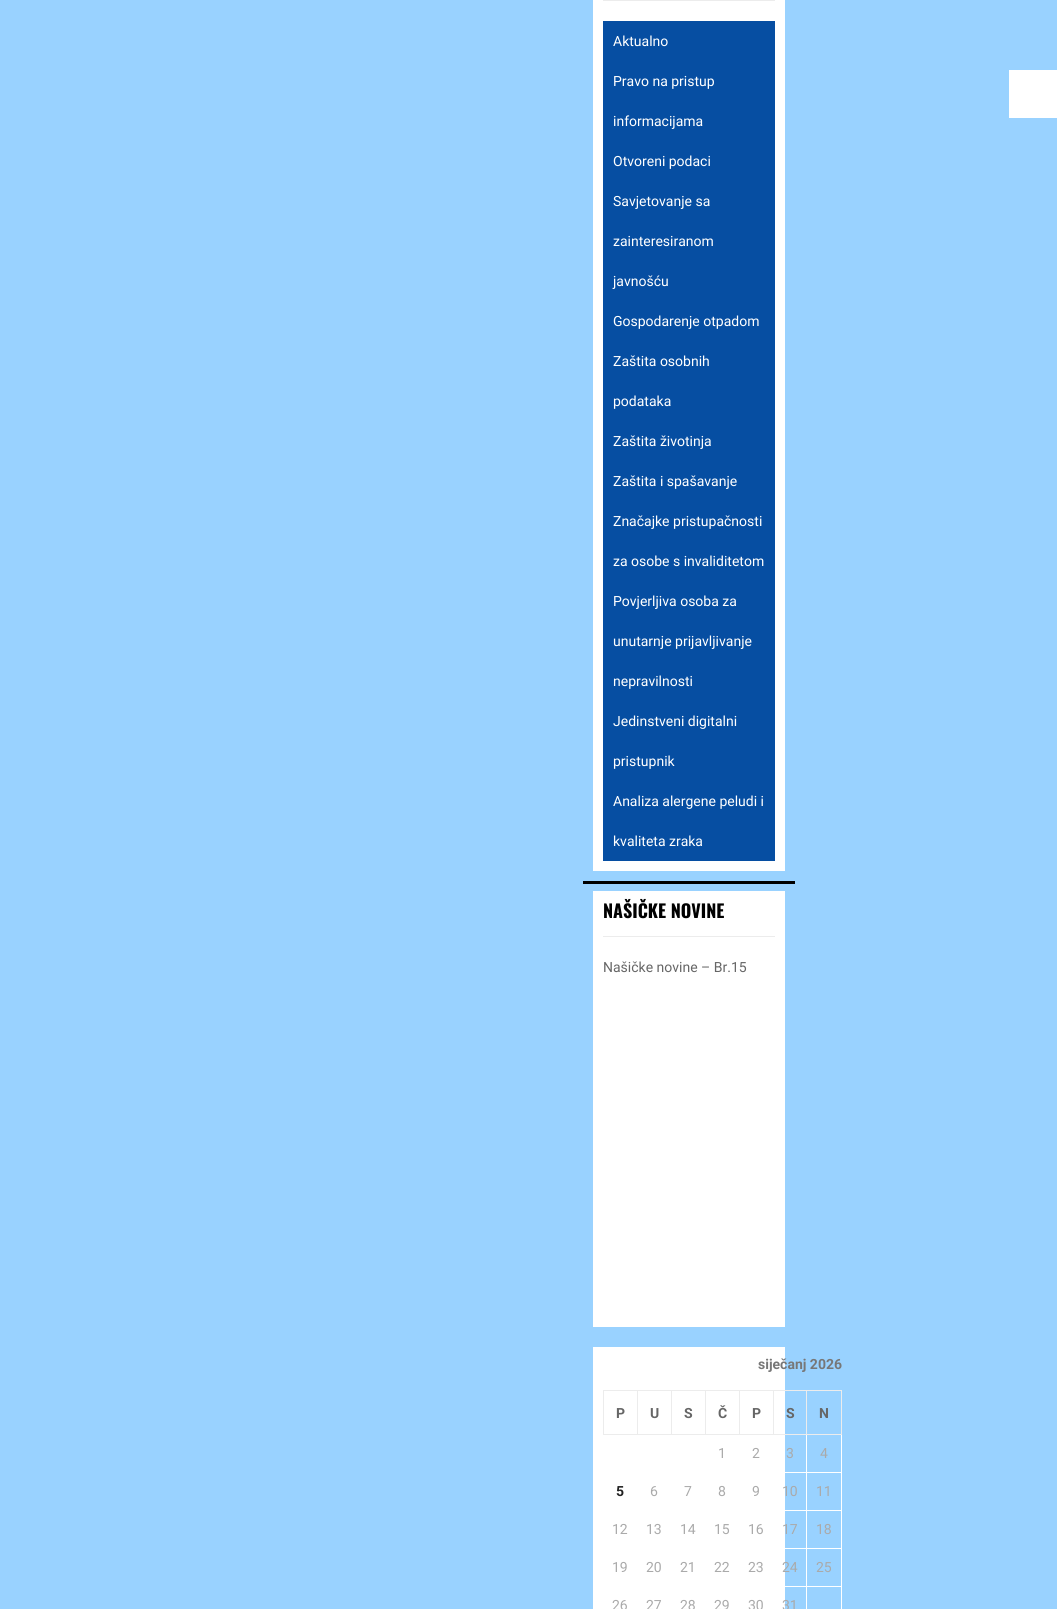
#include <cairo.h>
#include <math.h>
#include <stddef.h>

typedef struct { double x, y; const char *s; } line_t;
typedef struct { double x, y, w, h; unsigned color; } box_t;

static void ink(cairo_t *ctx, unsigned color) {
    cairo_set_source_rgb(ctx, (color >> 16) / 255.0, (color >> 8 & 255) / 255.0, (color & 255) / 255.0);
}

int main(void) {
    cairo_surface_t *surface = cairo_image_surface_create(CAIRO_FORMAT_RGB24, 1057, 1609);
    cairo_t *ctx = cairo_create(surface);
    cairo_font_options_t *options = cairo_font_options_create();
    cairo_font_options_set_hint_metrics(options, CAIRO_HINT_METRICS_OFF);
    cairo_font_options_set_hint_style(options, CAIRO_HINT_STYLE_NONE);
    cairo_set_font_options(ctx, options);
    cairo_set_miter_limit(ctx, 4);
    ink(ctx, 0x99D2FF);
    cairo_paint(ctx);
    {
        static const box_t items[] = {
            {593, 0, 192, 871, 0xFFFFFF},
            {603, 0, 172, 1, 0xECECEC},
            {603, 21, 172, 840, 0x064EA2},
        };
        for (size_t i = 0; i < sizeof items / sizeof *items; i++) {
            ink(ctx, items[i].color);
            cairo_rectangle(ctx, items[i].x, items[i].y, items[i].w, items[i].h);
            cairo_fill(ctx);
        }
    }
    cairo_select_font_face(ctx, "Roboto", CAIRO_FONT_SLANT_NORMAL, CAIRO_FONT_WEIGHT_NORMAL);
    cairo_set_font_size(ctx, 14);
    ink(ctx, 0xFFFFFF);
    {
        static const line_t items[] = {
            {613, 46, "Aktualno"},
            {613, 86, "Pravo na pristup"},
            {613, 126, "informacijama"},
            {613, 166, "Otvoreni podaci"},
            {613, 206, "Savjetovanje sa"},
            {613, 246, "zainteresiranom"},
            {613, 286, "javnošću"},
            {613, 326, "Gospodarenje otpadom"},
            {613, 366, "Zaštita osobnih"},
            {613, 406, "podataka"},
            {613, 446, "Zaštita životinja"},
            {613, 486, "Zaštita i spašavanje"},
            {613, 526, "Značajke pristupačnosti"},
            {613, 566, "za osobe s invaliditetom"},
            {613, 606, "Povjerljiva osoba za"},
            {613, 646, "unutarnje prijavljivanje"},
            {613, 686, "nepravilnosti"},
            {613, 726, "Jedinstveni digitalni"},
            {613, 766, "pristupnik"},
            {613, 806, "Analiza alergene peludi i"},
            {613, 846, "kvaliteta zraka"},
        };
        for (size_t i = 0; i < sizeof items / sizeof *items; i++) {
            cairo_move_to(ctx, items[i].x, items[i].y);
            cairo_show_text(ctx, items[i].s);
        }
    }
    {
        static const box_t items[] = {
            {593, 891, 192, 436, 0xFFFFFF},
            {603, 936, 172, 1, 0xECECEC},
            {583, 881, 212, 3, 0x000000},
        };
        for (size_t i = 0; i < sizeof items / sizeof *items; i++) {
            ink(ctx, items[i].color);
            cairo_rectangle(ctx, items[i].x, items[i].y, items[i].w, items[i].h);
            cairo_fill(ctx);
        }
    }
    cairo_select_font_face(ctx, "Oswald", CAIRO_FONT_SLANT_NORMAL, CAIRO_FONT_WEIGHT_BOLD);
    cairo_set_font_size(ctx, 18);
    cairo_move_to(ctx, 603, 918);
    cairo_show_text(ctx, "NAŠIČKE NOVINE");
    cairo_select_font_face(ctx, "Roboto", CAIRO_FONT_SLANT_NORMAL, CAIRO_FONT_WEIGHT_NORMAL);
    cairo_set_font_size(ctx, 14);
    ink(ctx, 0x666666);
    cairo_move_to(ctx, 603, 972);
    cairo_show_text(ctx, "Našičke novine – Br.15");
    ink(ctx, 0xFFFFFF);
    cairo_rectangle(ctx, 593, 1347, 192, 262);
    cairo_fill(ctx);
    cairo_select_font_face(ctx, "Roboto", CAIRO_FONT_SLANT_NORMAL, CAIRO_FONT_WEIGHT_BOLD);
    ink(ctx, 0x777777);
    cairo_move_to(ctx, 758, 1369);
    cairo_show_text(ctx, "siječanj 2026");
    {
        static const box_t items[] = {
            {806, 1390, 36, 1, 0xECECEC},
            {806, 1472, 36, 1, 0xFFFFFF},
            {806, 1510, 36, 1, 0xFFFFFF},
            {806, 1548, 36, 1, 0xFFFFFF},
            {806, 1586, 36, 1, 0xFFFFFF},
            {841, 1586, 1, 23, 0xFFFFFF},
            {841, 1548, 1, 39, 0xFFFFFF},
            {841, 1510, 1, 39, 0xFFFFFF},
            {841, 1434, 1, 77, 0xFFFFFF},
            {841, 1390, 1, 45, 0xECECEC},
            {806, 1586, 1, 23, 0xFFFFFF},
            {785, 1586, 22, 1, 0xFFFFFF},
            {806, 1548, 1, 39, 0xFFFFFF},
            {785, 1548, 22, 1, 0xFFFFFF},
            {806, 1510, 1, 39, 0xFFFFFF},
            {785, 1510, 22, 1, 0xFFFFFF},
            {806, 1472, 1, 39, 0xFFFFFF},
            {785, 1472, 22, 1, 0xFFFFFF},
            {806, 1434, 1, 39, 0xFFFFFF},
            {806, 1434, 36, 1, 0xECECEC},
            {806, 1390, 1, 45, 0xECECEC},
            {773, 1390, 34, 1, 0xECECEC},
            {773, 1434, 34, 1, 0xECECEC},
            {773, 1390, 1, 45, 0xECECEC},
            {739, 1390, 35, 1, 0xECECEC},
            {739, 1434, 35, 1, 0xECECEC},
            {739, 1390, 1, 45, 0xECECEC},
            {705, 1390, 35, 1, 0xECECEC},
            {705, 1434, 35, 1, 0xECECEC},
            {705, 1390, 1, 45, 0xECECEC},
            {671, 1390, 35, 1, 0xECECEC},
            {671, 1434, 35, 1, 0xECECEC},
            {671, 1390, 1, 45, 0xECECEC},
            {637, 1390, 35, 1, 0xECECEC},
            {637, 1434, 35, 1, 0xECECEC},
            {637, 1390, 1, 45, 0xECECEC},
            {603, 1390, 35, 1, 0xECECEC},
            {603, 1434, 35, 1, 0xECECEC},
            {603, 1390, 1, 45, 0xECECEC},
        };
        for (size_t i = 0; i < sizeof items / sizeof *items; i++) {
            ink(ctx, items[i].color);
            cairo_rectangle(ctx, items[i].x, items[i].y, items[i].w, items[i].h);
            cairo_fill(ctx);
        }
    }
    ink(ctx, 0x666666);
    {
        static const line_t items[] = {
            {616, 1418, "P"},
            {650, 1418, "U"},
            {684, 1418, "S"},
            {718, 1418, "Č"},
            {752, 1418, "P"},
            {786, 1418, "S"},
            {819, 1418, "N"},
        };
        for (size_t i = 0; i < sizeof items / sizeof *items; i++) {
            cairo_move_to(ctx, items[i].x, items[i].y);
            cairo_show_text(ctx, items[i].s);
        }
    }
    cairo_select_font_face(ctx, "Roboto", CAIRO_FONT_SLANT_NORMAL, CAIRO_FONT_WEIGHT_NORMAL);
    ink(ctx, 0xAAAAAA);
    {
        static const line_t items[] = {
            {718, 1458, "1"},
            {752, 1458, "2"},
            {786, 1458, "3"},
            {820, 1458, "4"},
        };
        for (size_t i = 0; i < sizeof items / sizeof *items; i++) {
            cairo_move_to(ctx, items[i].x, items[i].y);
            cairo_show_text(ctx, items[i].s);
        }
    }
    cairo_select_font_face(ctx, "Roboto", CAIRO_FONT_SLANT_NORMAL, CAIRO_FONT_WEIGHT_BOLD);
    ink(ctx, 0x222222);
    cairo_move_to(ctx, 616, 1496);
    cairo_show_text(ctx, "5");
    cairo_select_font_face(ctx, "Roboto", CAIRO_FONT_SLANT_NORMAL, CAIRO_FONT_WEIGHT_NORMAL);
    ink(ctx, 0xAAAAAA);
    {
        static const line_t items[] = {
            {650, 1496, "6"},
            {684, 1496, "7"},
            {718, 1496, "8"},
            {752, 1496, "9"},
            {782, 1496, "10"},
            {816, 1496, "11"},
            {612, 1534, "12"},
            {646, 1534, "13"},
            {680, 1534, "14"},
            {714, 1534, "15"},
            {748, 1534, "16"},
            {782, 1534, "17"},
            {816, 1534, "18"},
            {612, 1572, "19"},
            {646, 1572, "20"},
            {680, 1572, "21"},
            {714, 1572, "22"},
            {748, 1572, "23"},
            {782, 1572, "24"},
            {816, 1572, "25"},
            {612, 1610, "26"},
            {646, 1610, "27"},
            {680, 1610, "28"},
            {714, 1610, "29"},
            {748, 1610, "30"},
            {782, 1610, "31"},
        };
        for (size_t i = 0; i < sizeof items / sizeof *items; i++) {
            cairo_move_to(ctx, items[i].x, items[i].y);
            cairo_show_text(ctx, items[i].s);
        }
    }
    ink(ctx, 0xFFFFFF);
    cairo_rectangle(ctx, 1009, 70, 48, 48);
    cairo_fill(ctx);
    cairo_surface_write_to_png(surface, "image.png");
    cairo_font_options_destroy(options);
    cairo_destroy(ctx);
    cairo_surface_destroy(surface);
    return 0;
}
